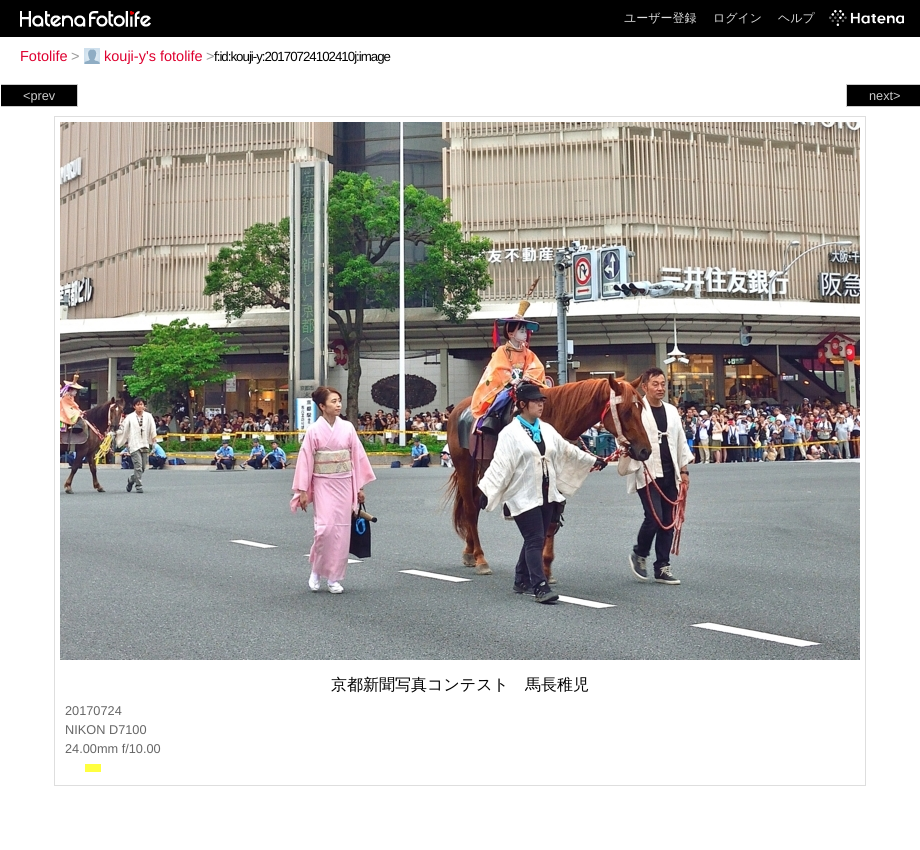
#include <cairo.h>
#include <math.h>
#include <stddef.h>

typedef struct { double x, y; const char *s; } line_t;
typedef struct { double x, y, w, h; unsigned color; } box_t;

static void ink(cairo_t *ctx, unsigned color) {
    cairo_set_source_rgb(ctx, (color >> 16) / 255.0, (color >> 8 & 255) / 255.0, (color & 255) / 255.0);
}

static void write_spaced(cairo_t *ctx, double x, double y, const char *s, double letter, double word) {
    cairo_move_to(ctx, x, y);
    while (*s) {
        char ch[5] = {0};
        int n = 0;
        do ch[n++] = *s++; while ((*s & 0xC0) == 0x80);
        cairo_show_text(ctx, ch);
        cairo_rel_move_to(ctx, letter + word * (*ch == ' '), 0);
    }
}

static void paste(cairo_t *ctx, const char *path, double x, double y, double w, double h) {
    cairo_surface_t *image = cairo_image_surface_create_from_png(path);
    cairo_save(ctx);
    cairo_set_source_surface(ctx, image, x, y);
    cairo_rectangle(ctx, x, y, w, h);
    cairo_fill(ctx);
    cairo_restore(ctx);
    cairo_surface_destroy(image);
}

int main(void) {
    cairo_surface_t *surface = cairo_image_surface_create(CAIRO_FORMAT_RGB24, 920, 850);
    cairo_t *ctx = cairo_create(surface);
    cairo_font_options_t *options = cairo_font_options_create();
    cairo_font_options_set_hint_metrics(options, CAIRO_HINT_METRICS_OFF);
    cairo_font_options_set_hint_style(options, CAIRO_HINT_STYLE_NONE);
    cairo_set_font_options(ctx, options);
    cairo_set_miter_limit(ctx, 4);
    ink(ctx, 0xFFFFFF);
    cairo_paint(ctx);
    ink(ctx, 0x000000);
    cairo_rectangle(ctx, 0, 0, 920, 37);
    cairo_fill(ctx);
    paste(ctx, "media/1.png", 20, 11, 66, 16);
    paste(ctx, "media/2.png", 89, 11, 62, 16);
    cairo_select_font_face(ctx, "WenQuanYi Zen Hei Medium", CAIRO_FONT_SLANT_NORMAL, CAIRO_FONT_WEIGHT_NORMAL);
    cairo_set_font_size(ctx, 12);
    ink(ctx, 0xDDDDDD);
    {
        static const line_t items[] = {
            {624, 22, "ユーザー登録"},
            {713, 22, "ログイン"},
            {778, 22, "ヘルプ"},
        };
        for (size_t i = 0; i < sizeof items / sizeof *items; i++) {
            cairo_move_to(ctx, items[i].x, items[i].y);
            cairo_show_text(ctx, items[i].s);
        }
    }
    paste(ctx, "media/3.png", 829, 10, 75, 16);
    cairo_select_font_face(ctx, "Liberation Sans", CAIRO_FONT_SLANT_NORMAL, CAIRO_FONT_WEIGHT_NORMAL);
    cairo_set_font_size(ctx, 14.5);
    ink(ctx, 0xDE002F);
    cairo_move_to(ctx, 20, 61);
    cairo_show_text(ctx, "Fotolife");
    ink(ctx, 0x999999);
    cairo_move_to(ctx, 71, 61);
    cairo_show_text(ctx, ">");
    paste(ctx, "media/4.png", 84, 48, 16, 16);
    ink(ctx, 0xDE002F);
    cairo_move_to(ctx, 104, 61);
    cairo_show_text(ctx, "kouji-y's fotolife");
    ink(ctx, 0x999999);
    cairo_move_to(ctx, 206, 61);
    cairo_show_text(ctx, ">");
    cairo_set_font_size(ctx, 13.3);
    ink(ctx, 0x000000);
    write_spaced(ctx, 214, 61, "f:id:kouji-y:20170724102410j:image", -1, 0);
    {
        static const box_t items[] = {
            {1, 85, 76, 21, 0x000000},
            {1, 84, 77, 1, 0xCCCCCC},
            {77, 84, 1, 23, 0xCCCCCC},
            {1, 106, 77, 1, 0xCCCCCC},
        };
        for (size_t i = 0; i < sizeof items / sizeof *items; i++) {
            ink(ctx, items[i].color);
            cairo_rectangle(ctx, items[i].x, items[i].y, items[i].w, items[i].h);
            cairo_fill(ctx);
        }
    }
    cairo_set_font_size(ctx, 12.75);
    cairo_move_to(ctx, 23, 100);
    cairo_show_text(ctx, "<prev");
    {
        static const box_t items[] = {
            {847, 85, 73, 21, 0x000000},
            {846, 84, 74, 1, 0xCCCCCC},
            {846, 106, 74, 1, 0xCCCCCC},
            {846, 84, 1, 23, 0xCCCCCC},
        };
        for (size_t i = 0; i < sizeof items / sizeof *items; i++) {
            ink(ctx, items[i].color);
            cairo_rectangle(ctx, items[i].x, items[i].y, items[i].w, items[i].h);
            cairo_fill(ctx);
        }
    }
    cairo_move_to(ctx, 869, 100);
    cairo_show_text(ctx, "next>");
    cairo_rectangle(ctx, 54.5, 116.5, 811, 669);
    ink(ctx, 0xDEDEDE);
    cairo_set_line_width(ctx, 1);
    cairo_stroke(ctx);
    paste(ctx, "media/5.png", 60, 122, 800, 538);
    cairo_select_font_face(ctx, "WenQuanYi Zen Hei Medium", CAIRO_FONT_SLANT_NORMAL, CAIRO_FONT_WEIGHT_NORMAL);
    cairo_set_font_size(ctx, 16);
    ink(ctx, 0x000000);
    cairo_move_to(ctx, 331, 690);
    cairo_show_text(ctx, "京都新聞写真コンテスト　馬長稚児");
    cairo_select_font_face(ctx, "Liberation Sans", CAIRO_FONT_SLANT_NORMAL, CAIRO_FONT_WEIGHT_NORMAL);
    cairo_set_font_size(ctx, 12.75);
    ink(ctx, 0x666666);
    {
        static const line_t items[] = {
            {65, 715, "20170724"},
            {65, 734, "NIKON D7100"},
            {65, 753, "24.00mm f/10.00"},
        };
        for (size_t i = 0; i < sizeof items / sizeof *items; i++) {
            cairo_move_to(ctx, items[i].x, items[i].y);
            cairo_show_text(ctx, items[i].s);
        }
    }
    ink(ctx, 0xFFFF40);
    cairo_rectangle(ctx, 85, 764, 16, 8);
    cairo_fill(ctx);
    cairo_surface_write_to_png(surface, "image.png");
    cairo_font_options_destroy(options);
    cairo_destroy(ctx);
    cairo_surface_destroy(surface);
    return 0;
}
